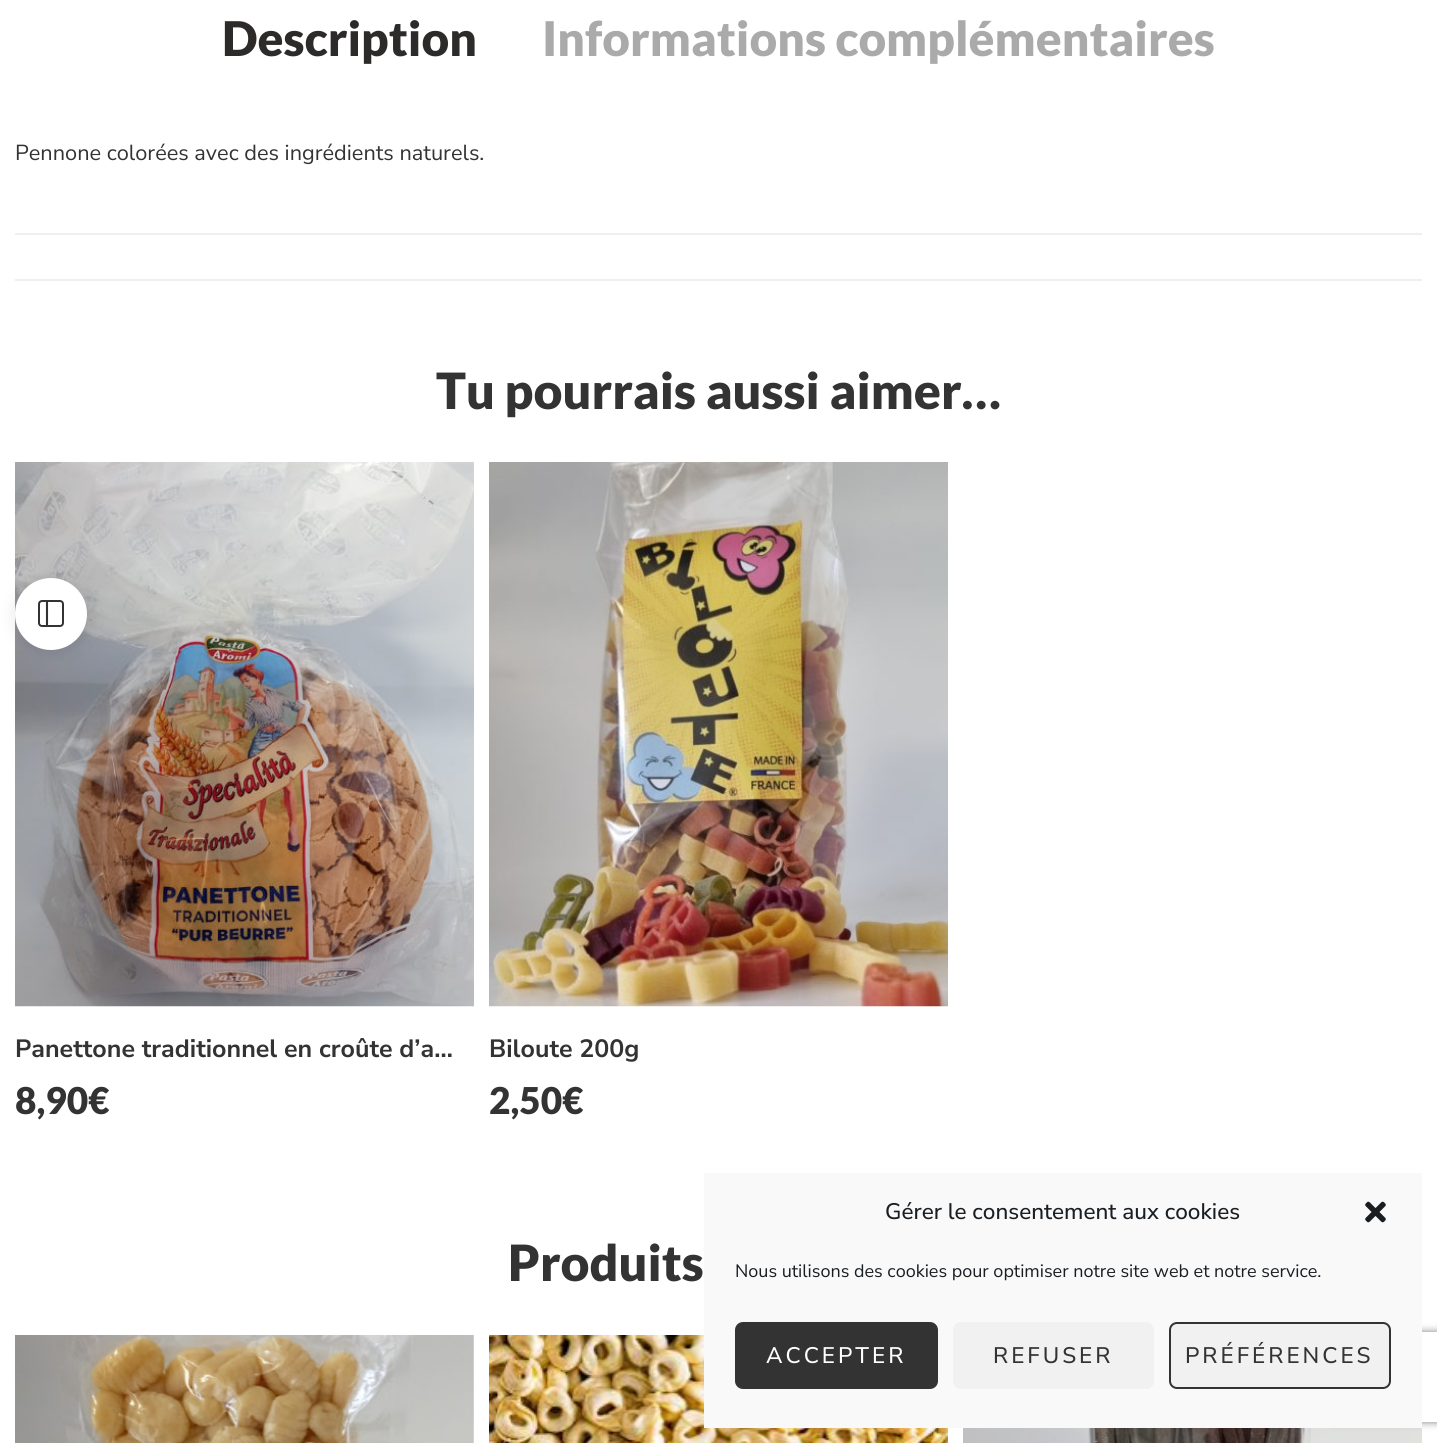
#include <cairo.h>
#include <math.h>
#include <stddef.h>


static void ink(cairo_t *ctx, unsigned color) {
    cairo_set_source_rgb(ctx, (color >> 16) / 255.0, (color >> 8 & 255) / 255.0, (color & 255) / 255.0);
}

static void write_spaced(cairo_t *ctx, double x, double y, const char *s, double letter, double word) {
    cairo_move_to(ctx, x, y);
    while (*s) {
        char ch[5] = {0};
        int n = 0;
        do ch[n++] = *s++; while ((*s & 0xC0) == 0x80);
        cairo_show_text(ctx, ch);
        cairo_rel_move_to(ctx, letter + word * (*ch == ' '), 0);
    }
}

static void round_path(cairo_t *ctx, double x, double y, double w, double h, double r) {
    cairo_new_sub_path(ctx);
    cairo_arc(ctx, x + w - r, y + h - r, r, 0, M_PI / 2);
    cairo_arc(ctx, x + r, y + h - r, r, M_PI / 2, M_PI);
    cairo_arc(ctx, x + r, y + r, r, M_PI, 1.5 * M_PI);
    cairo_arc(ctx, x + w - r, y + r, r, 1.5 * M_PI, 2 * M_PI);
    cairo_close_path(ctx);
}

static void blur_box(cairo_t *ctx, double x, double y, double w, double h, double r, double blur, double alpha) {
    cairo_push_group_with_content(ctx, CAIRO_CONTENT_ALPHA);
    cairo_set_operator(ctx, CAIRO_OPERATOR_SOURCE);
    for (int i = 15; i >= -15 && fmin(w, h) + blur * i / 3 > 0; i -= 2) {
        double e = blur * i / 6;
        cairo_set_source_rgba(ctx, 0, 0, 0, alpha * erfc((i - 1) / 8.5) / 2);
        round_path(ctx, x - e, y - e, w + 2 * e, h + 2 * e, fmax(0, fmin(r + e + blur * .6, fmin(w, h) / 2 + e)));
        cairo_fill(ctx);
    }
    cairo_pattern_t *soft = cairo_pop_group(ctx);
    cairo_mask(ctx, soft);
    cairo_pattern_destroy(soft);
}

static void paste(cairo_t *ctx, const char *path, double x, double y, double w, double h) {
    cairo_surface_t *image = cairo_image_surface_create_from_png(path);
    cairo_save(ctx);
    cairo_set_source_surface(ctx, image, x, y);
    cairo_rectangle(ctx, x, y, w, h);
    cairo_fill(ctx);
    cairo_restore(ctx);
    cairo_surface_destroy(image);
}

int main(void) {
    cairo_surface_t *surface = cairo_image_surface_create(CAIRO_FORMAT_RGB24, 1437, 1443);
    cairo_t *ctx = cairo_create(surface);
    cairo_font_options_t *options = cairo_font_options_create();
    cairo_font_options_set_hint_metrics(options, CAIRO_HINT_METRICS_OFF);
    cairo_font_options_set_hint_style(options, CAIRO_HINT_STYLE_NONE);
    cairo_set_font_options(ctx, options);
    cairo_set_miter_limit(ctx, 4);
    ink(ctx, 0xFFFFFF);
    cairo_paint(ctx);
    cairo_select_font_face(ctx, "Lato Black", CAIRO_FONT_SLANT_NORMAL, CAIRO_FONT_WEIGHT_NORMAL);
    cairo_set_font_size(ctx, 47.8);
    ink(ctx, 0x2D2A2A);
    cairo_move_to(ctx, 222, 56);
    cairo_show_text(ctx, "Description");
    ink(ctx, 0xAAAAAA);
    cairo_move_to(ctx, 542, 56);
    cairo_show_text(ctx, "Informations complémentaires");
    cairo_select_font_face(ctx, "Nunito Sans", CAIRO_FONT_SLANT_NORMAL, CAIRO_FONT_WEIGHT_NORMAL);
    cairo_set_font_size(ctx, 21.75);
    ink(ctx, 0x333333);
    cairo_move_to(ctx, 15, 160);
    cairo_show_text(ctx, "Pennone colorées avec des ingrédients naturels.");
    ink(ctx, 0xEFEFEF);
    cairo_rectangle(ctx, 15, 233, 1407, 2);
    cairo_fill(ctx);
    cairo_rectangle(ctx, 15, 279, 1407, 2);
    cairo_fill(ctx);
    paste(ctx, "media/1.png", 15, 462, 459, 545);
    ink(ctx, 0x000000);
    blur_box(ctx, 15, 578, 75, 75, 37.5, 7.5, 0.1);
    ink(ctx, 0xFFFFFF);
    cairo_arc(ctx, 51, 614, 36, 0, 2 * M_PI);
    cairo_fill(ctx);
    round_path(ctx, 39, 601, 24, 25, 3);
    ink(ctx, 0x333333);
    cairo_stroke(ctx);
    cairo_new_path(ctx);
    cairo_move_to(ctx, 47, 601);
    cairo_line_to(ctx, 47, 626);
    cairo_set_line_width(ctx, 2.1);
    cairo_set_line_cap(ctx, CAIRO_LINE_CAP_ROUND);
    cairo_set_line_join(ctx, CAIRO_LINE_JOIN_ROUND);
    cairo_stroke(ctx);
    cairo_select_font_face(ctx, "Lato Black", CAIRO_FONT_SLANT_NORMAL, CAIRO_FONT_WEIGHT_NORMAL);
    cairo_set_font_size(ctx, 50);
    cairo_move_to(ctx, 436, 409);
    cairo_show_text(ctx, "Tu pourrais aussi aimer…");
    cairo_select_font_face(ctx, "Nunito Sans", CAIRO_FONT_SLANT_NORMAL, CAIRO_FONT_WEIGHT_BOLD);
    cairo_set_font_size(ctx, 25);
    cairo_move_to(ctx, 15, 1057);
    cairo_show_text(ctx, "Panettone traditionnel en croûte d’a…");
    cairo_select_font_face(ctx, "Lato Black", CAIRO_FONT_SLANT_NORMAL, CAIRO_FONT_WEIGHT_NORMAL);
    cairo_set_font_size(ctx, 37);
    cairo_move_to(ctx, 15, 1114);
    cairo_show_text(ctx, "8,90€");
    paste(ctx, "media/2.png", 489, 462, 459, 545);
    cairo_select_font_face(ctx, "Nunito Sans", CAIRO_FONT_SLANT_NORMAL, CAIRO_FONT_WEIGHT_BOLD);
    cairo_set_font_size(ctx, 25);
    cairo_move_to(ctx, 489, 1057);
    cairo_show_text(ctx, "Biloute 200g");
    cairo_select_font_face(ctx, "Lato Black", CAIRO_FONT_SLANT_NORMAL, CAIRO_FONT_WEIGHT_NORMAL);
    cairo_set_font_size(ctx, 37);
    cairo_move_to(ctx, 489, 1114);
    cairo_show_text(ctx, "2,50€");
    cairo_set_font_size(ctx, 50);
    cairo_move_to(ctx, 508, 1281);
    cairo_show_text(ctx, "Produits");
    paste(ctx, "media/3.png", 15, 1335, 459, 108);
    paste(ctx, "media/4.png", 489, 1335, 459, 108);
    paste(ctx, "media/5.png", 963, 1428, 459, 15);
    cairo_save(ctx);
    cairo_set_fill_rule(ctx, CAIRO_FILL_RULE_EVEN_ODD);
    cairo_new_path(ctx);
    cairo_move_to(ctx, 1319, 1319);
    cairo_line_to(ctx, 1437, 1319);
    cairo_line_to(ctx, 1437, 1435);
    cairo_line_to(ctx, 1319, 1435);
    cairo_close_path(ctx);
    cairo_move_to(ctx, 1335, 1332);
    cairo_line_to(ctx, 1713, 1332);
    cairo_curve_to(ctx, 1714.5, 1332, 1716, 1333.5, 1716, 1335);
    cairo_line_to(ctx, 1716, 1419);
    cairo_curve_to(ctx, 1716, 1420.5, 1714.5, 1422, 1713, 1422);
    cairo_line_to(ctx, 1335, 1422);
    cairo_curve_to(ctx, 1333.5, 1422, 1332, 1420.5, 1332, 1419);
    cairo_line_to(ctx, 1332, 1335);
    cairo_curve_to(ctx, 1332, 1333.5, 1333.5, 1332, 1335, 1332);
    cairo_close_path(ctx);
    cairo_clip(ctx);
    ink(ctx, 0x808080);
    blur_box(ctx, 1332, 1332, 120, 90, 3, 4, 1);
    cairo_restore(ctx);
    ink(ctx, 0xF9F9F9);
    cairo_rectangle(ctx, 704, 1173, 718, 255);
    cairo_fill(ctx);
    cairo_select_font_face(ctx, "Nunito Sans Medium", CAIRO_FONT_SLANT_NORMAL, CAIRO_FONT_WEIGHT_NORMAL);
    cairo_set_font_size(ctx, 22.5);
    ink(ctx, 0x191E23);
    cairo_move_to(ctx, 885, 1219);
    cairo_show_text(ctx, "Gérer le consentement aux cookies");
    paste(ctx, "media/6.png", 1365, 1201, 21, 22);
    cairo_select_font_face(ctx, "Nunito Sans", CAIRO_FONT_SLANT_NORMAL, CAIRO_FONT_WEIGHT_NORMAL);
    cairo_set_font_size(ctx, 18);
    cairo_move_to(ctx, 735, 1277);
    cairo_show_text(ctx, "Nous utilisons des cookies pour optimiser notre site web et notre service.");
    ink(ctx, 0x333333);
    round_path(ctx, 736, 1323, 201, 65, 7);
    cairo_fill_preserve(ctx);
    cairo_set_line_width(ctx, 2);
    cairo_set_line_cap(ctx, CAIRO_LINE_CAP_BUTT);
    cairo_set_line_join(ctx, CAIRO_LINE_JOIN_MITER);
    cairo_stroke(ctx);
    cairo_select_font_face(ctx, "Nunito Sans Medium", CAIRO_FONT_SLANT_NORMAL, CAIRO_FONT_WEIGHT_NORMAL);
    cairo_set_font_size(ctx, 22.5);
    ink(ctx, 0xFFFFFF);
    write_spaced(ctx, 766, 1363, "ACCEPTER", 3, 0);
    ink(ctx, 0xF1F1F1);
    round_path(ctx, 953, 1322, 201, 67, 8);
    cairo_fill(ctx);
    ink(ctx, 0x333333);
    write_spaced(ctx, 993, 1363, "REFUSER", 3, 0);
    ink(ctx, 0xF1F1F1);
    round_path(ctx, 1170, 1323, 220, 65, 7);
    cairo_fill_preserve(ctx);
    ink(ctx, 0x333333);
    cairo_stroke(ctx);
    write_spaced(ctx, 1185, 1363, "PRÉFÉRENCES", 3, 0);
    cairo_surface_write_to_png(surface, "image.png");
    cairo_font_options_destroy(options);
    cairo_destroy(ctx);
    cairo_surface_destroy(surface);
    return 0;
}
